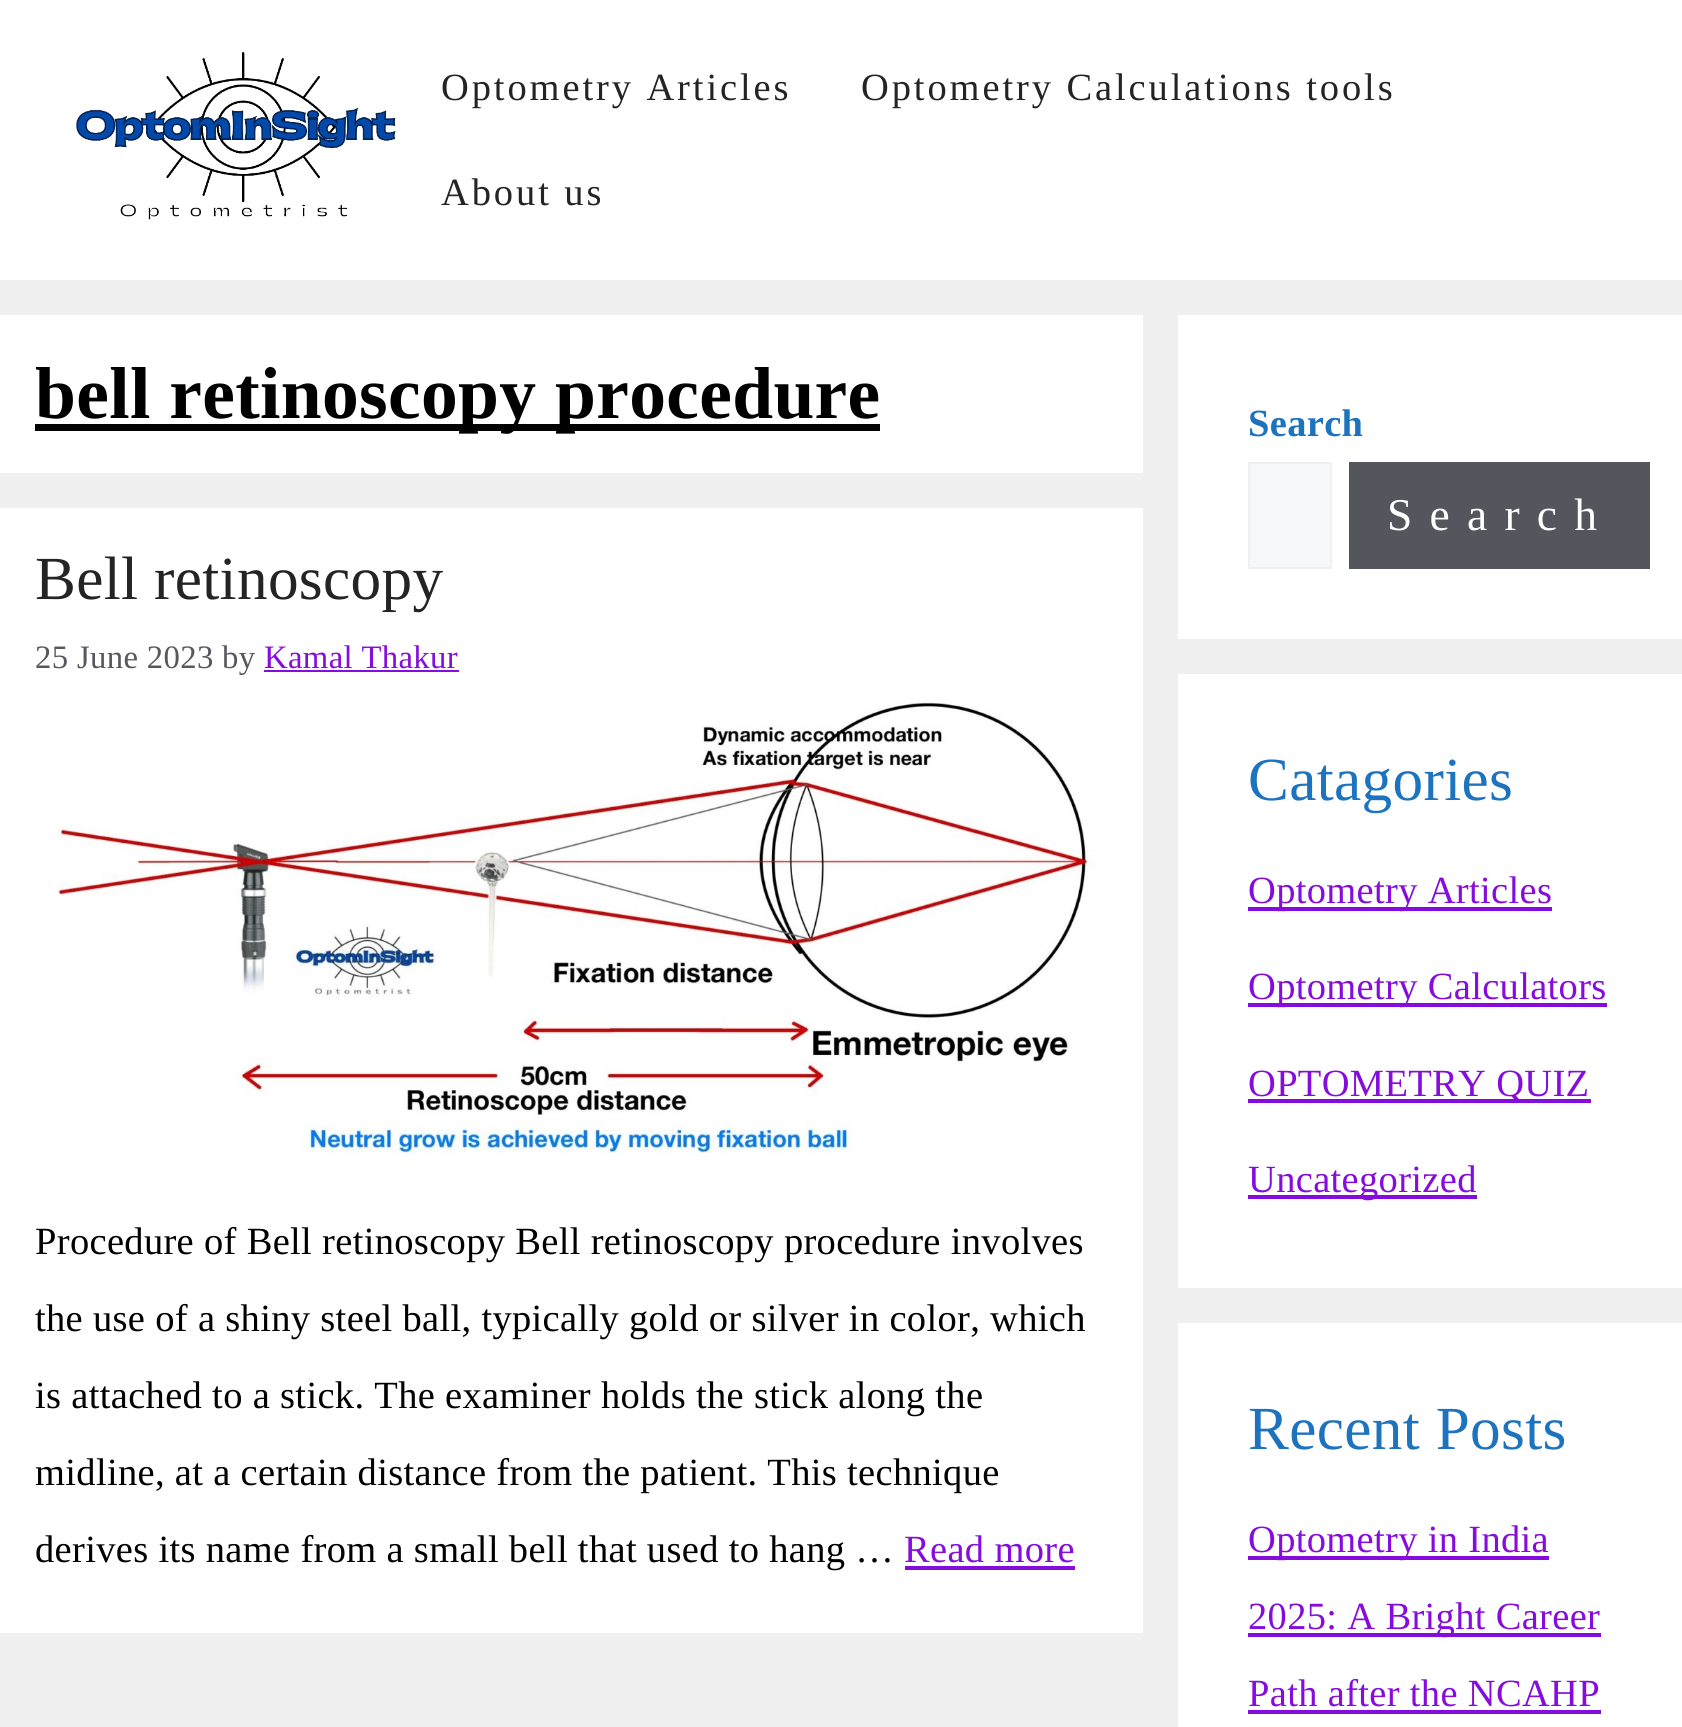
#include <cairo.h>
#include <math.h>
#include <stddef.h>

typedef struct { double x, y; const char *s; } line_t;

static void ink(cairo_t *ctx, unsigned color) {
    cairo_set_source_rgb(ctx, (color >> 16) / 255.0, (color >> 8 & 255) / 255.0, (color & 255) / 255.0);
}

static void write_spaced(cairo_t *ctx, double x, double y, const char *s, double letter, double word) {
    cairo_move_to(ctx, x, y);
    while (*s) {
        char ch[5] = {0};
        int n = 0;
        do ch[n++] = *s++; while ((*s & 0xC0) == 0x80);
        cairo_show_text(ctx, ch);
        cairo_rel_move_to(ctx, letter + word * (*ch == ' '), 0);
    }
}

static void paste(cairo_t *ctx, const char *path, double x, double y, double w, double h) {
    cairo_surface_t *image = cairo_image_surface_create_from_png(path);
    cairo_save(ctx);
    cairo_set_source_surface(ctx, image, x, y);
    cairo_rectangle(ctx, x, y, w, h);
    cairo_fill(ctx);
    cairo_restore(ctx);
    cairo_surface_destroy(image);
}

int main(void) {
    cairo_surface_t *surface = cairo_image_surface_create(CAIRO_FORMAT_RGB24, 1682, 1727);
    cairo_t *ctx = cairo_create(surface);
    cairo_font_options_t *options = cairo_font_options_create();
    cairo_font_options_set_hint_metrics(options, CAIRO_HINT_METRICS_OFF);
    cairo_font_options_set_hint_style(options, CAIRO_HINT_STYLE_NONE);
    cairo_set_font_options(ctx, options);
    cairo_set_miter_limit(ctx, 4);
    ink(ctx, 0xF0F0F0);
    cairo_paint(ctx);
    ink(ctx, 0xFFFFFF);
    cairo_rectangle(ctx, 0, 0, 1682, 280);
    cairo_fill(ctx);
    paste(ctx, "media/1.png", 76, 52, 320, 168);
    cairo_select_font_face(ctx, "Liberation Serif", CAIRO_FONT_SLANT_NORMAL, CAIRO_FONT_WEIGHT_NORMAL);
    cairo_set_font_size(ctx, 38.5);
    ink(ctx, 0x242424);
    {
        static const line_t items[] = {
            {441, 100, "Optometry Articles"},
            {861, 100, "Optometry Calculations tools"},
            {441, 205, "About us"},
        };
        for (size_t i = 0; i < sizeof items / sizeof *items; i++) {
            write_spaced(ctx, items[i].x, items[i].y, items[i].s, 2.9, 0);
        }
    }
    ink(ctx, 0xFFFFFF);
    cairo_rectangle(ctx, 0, 315, 1143, 158);
    cairo_fill(ctx);
    ink(ctx, 0x000000);
    cairo_rectangle(ctx, 35, 424, 845, 7);
    cairo_fill(ctx);
    cairo_select_font_face(ctx, "Liberation Serif", CAIRO_FONT_SLANT_NORMAL, CAIRO_FONT_WEIGHT_BOLD);
    cairo_set_font_size(ctx, 73.5);
    write_spaced(ctx, 35, 418, "bell retinoscopy procedure", 0.33, 0);
    ink(ctx, 0xFFFFFF);
    cairo_rectangle(ctx, 0, 508, 1143, 1125);
    cairo_fill(ctx);
    cairo_select_font_face(ctx, "Liberation Serif", CAIRO_FONT_SLANT_NORMAL, CAIRO_FONT_WEIGHT_NORMAL);
    cairo_set_font_size(ctx, 61.25);
    ink(ctx, 0x242424);
    write_spaced(ctx, 35, 599, "Bell retinoscopy", 0.33, 0);
    cairo_set_font_size(ctx, 32.75);
    ink(ctx, 0x575760);
    write_spaced(ctx, 35, 668, "25 June 2023 by", 0.33, 0);
    ink(ctx, 0x860CDD);
    write_spaced(ctx, 264, 668, "Kamal Thakur", 0.33, 0);
    cairo_rectangle(ctx, 264, 670, 195, 2);
    cairo_fill(ctx);
    paste(ctx, "media/2.png", 57, 702, 1040, 451);
    cairo_set_font_size(ctx, 38.5);
    ink(ctx, 0x000000);
    {
        static const line_t items[] = {
            {35, 1254, "Procedure of Bell retinoscopy Bell retinoscopy procedure involves"},
            {35, 1331, "the use of a shiny steel ball, typically gold or silver in color, which"},
            {35, 1408, "is attached to a stick. The examiner holds the stick along the"},
            {35, 1485, "midline, at a certain distance from the patient. This technique"},
            {35, 1562, "derives its name from a small bell that used to hang …"},
        };
        for (size_t i = 0; i < sizeof items / sizeof *items; i++) {
            write_spaced(ctx, items[i].x, items[i].y, items[i].s, 0.33, 0);
        }
    }
    ink(ctx, 0x860CDD);
    write_spaced(ctx, 904, 1562, "Read more", 0.33, 0);
    cairo_rectangle(ctx, 905, 1566, 170, 4);
    cairo_fill(ctx);
    ink(ctx, 0xFFFFFF);
    cairo_rectangle(ctx, 1178, 315, 504, 324);
    cairo_fill(ctx);
    cairo_select_font_face(ctx, "Liberation Serif", CAIRO_FONT_SLANT_NORMAL, CAIRO_FONT_WEIGHT_BOLD);
    ink(ctx, 0x1E73BE);
    write_spaced(ctx, 1248, 436, "Search", 0.33, 0);
    ink(ctx, 0xF7F8F9);
    cairo_rectangle(ctx, 1249, 463, 82, 105);
    cairo_fill_preserve(ctx);
    ink(ctx, 0xF0F0F0);
    cairo_stroke(ctx);
    ink(ctx, 0x55555E);
    cairo_rectangle(ctx, 1349, 462, 301, 107);
    cairo_fill(ctx);
    cairo_select_font_face(ctx, "Liberation Serif", CAIRO_FONT_SLANT_NORMAL, CAIRO_FONT_WEIGHT_NORMAL);
    cairo_set_font_size(ctx, 45.5);
    ink(ctx, 0xFFFFFF);
    write_spaced(ctx, 1387, 530, "Search", 17.25, 0);
    cairo_rectangle(ctx, 1178, 674, 504, 614);
    cairo_fill(ctx);
    cairo_set_font_size(ctx, 61.25);
    ink(ctx, 0x1E73BE);
    write_spaced(ctx, 1248, 800, "Catagories", 0.33, 0);
    ink(ctx, 0x860CDD);
    cairo_rectangle(ctx, 1248, 907, 304, 4);
    cairo_fill(ctx);
    cairo_set_font_size(ctx, 38.5);
    write_spaced(ctx, 1248, 903, "Optometry Articles", 0.33, 0);
    cairo_rectangle(ctx, 1248, 1003, 359, 4);
    cairo_fill(ctx);
    write_spaced(ctx, 1248, 999, "Optometry Calculators", 0.33, 0);
    cairo_rectangle(ctx, 1248, 1099, 343, 4);
    cairo_fill(ctx);
    write_spaced(ctx, 1248, 1096, "OPTOMETRY QUIZ", 0.33, 0);
    cairo_rectangle(ctx, 1248, 1195, 229, 4);
    cairo_fill(ctx);
    write_spaced(ctx, 1248, 1192, "Uncategorized", 0.33, 0);
    ink(ctx, 0xFFFFFF);
    cairo_rectangle(ctx, 1178, 1323, 504, 404);
    cairo_fill(ctx);
    cairo_set_font_size(ctx, 61.25);
    ink(ctx, 0x1E73BE);
    write_spaced(ctx, 1248, 1449, "Recent Posts", 0.33, 0);
    ink(ctx, 0x860CDD);
    cairo_rectangle(ctx, 1248, 1556, 301, 4);
    cairo_fill(ctx);
    cairo_set_font_size(ctx, 38.5);
    write_spaced(ctx, 1248, 1552, "Optometry in India", 0.33, 0);
    cairo_rectangle(ctx, 1248, 1633, 353, 4);
    cairo_fill(ctx);
    write_spaced(ctx, 1248, 1629, "2025: A Bright Career", 0.33, 0);
    write_spaced(ctx, 1248, 1706, "Path after the NCAHP", 0.33, 0);
    cairo_rectangle(ctx, 1248, 1710, 353, 4);
    cairo_fill(ctx);
    cairo_surface_write_to_png(surface, "image.png");
    cairo_font_options_destroy(options);
    cairo_destroy(ctx);
    cairo_surface_destroy(surface);
    return 0;
}
